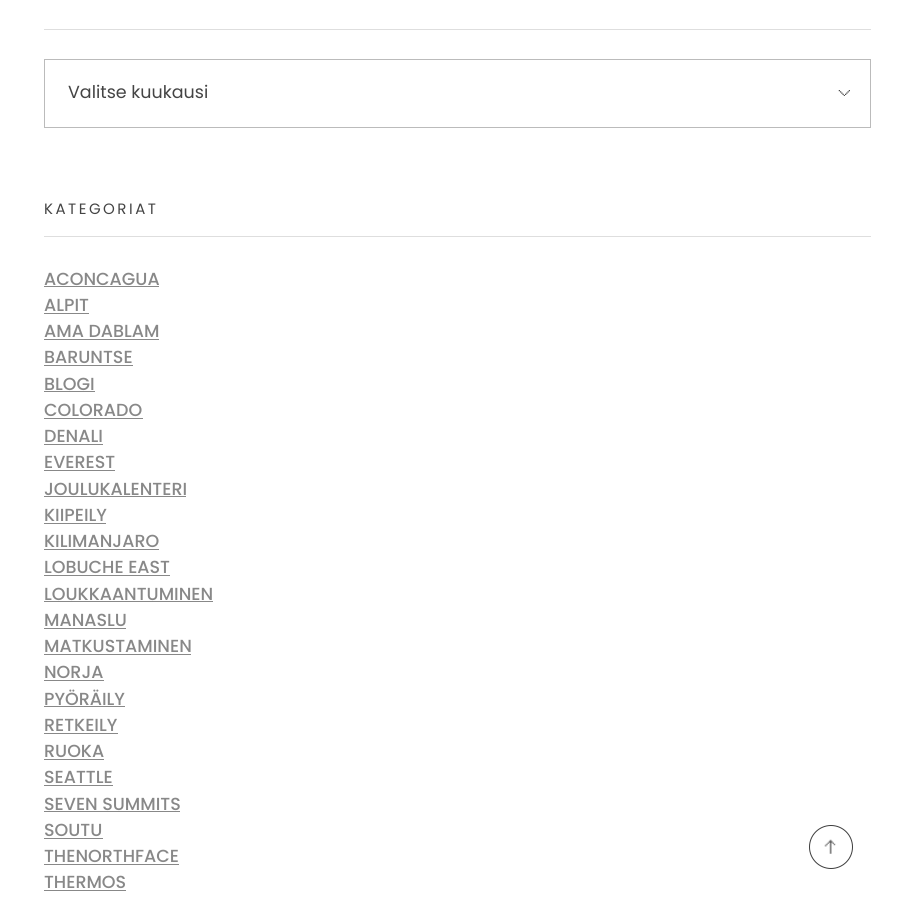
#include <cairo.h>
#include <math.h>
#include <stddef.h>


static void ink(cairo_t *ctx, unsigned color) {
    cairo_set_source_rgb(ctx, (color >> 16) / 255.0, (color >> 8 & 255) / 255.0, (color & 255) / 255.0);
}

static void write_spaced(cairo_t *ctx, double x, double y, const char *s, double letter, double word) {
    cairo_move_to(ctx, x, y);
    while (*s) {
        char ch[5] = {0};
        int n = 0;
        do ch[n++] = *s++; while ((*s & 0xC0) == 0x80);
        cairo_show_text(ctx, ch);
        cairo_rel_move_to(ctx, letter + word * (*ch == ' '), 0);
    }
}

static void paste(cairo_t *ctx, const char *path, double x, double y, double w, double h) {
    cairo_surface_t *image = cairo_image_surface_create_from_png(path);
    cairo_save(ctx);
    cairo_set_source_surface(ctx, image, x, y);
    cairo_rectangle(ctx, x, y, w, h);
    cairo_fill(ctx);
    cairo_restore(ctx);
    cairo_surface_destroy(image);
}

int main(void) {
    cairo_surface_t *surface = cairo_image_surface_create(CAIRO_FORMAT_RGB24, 914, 906);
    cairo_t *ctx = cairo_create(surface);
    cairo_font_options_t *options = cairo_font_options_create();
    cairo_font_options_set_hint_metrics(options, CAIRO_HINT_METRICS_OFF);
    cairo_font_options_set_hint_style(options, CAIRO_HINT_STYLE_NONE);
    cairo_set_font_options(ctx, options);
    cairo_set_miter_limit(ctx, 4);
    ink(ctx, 0xFFFFFF);
    cairo_paint(ctx);
    ink(ctx, 0xDEDEDE);
    cairo_rectangle(ctx, 44, 29, 827, 1);
    cairo_fill(ctx);
    paste(ctx, "media/1.png", 838, 90, 12, 6);
    cairo_rectangle(ctx, 44.5, 59.5, 826, 68);
    ink(ctx, 0xBBBBBB);
    cairo_set_line_width(ctx, 1);
    cairo_stroke(ctx);
    cairo_select_font_face(ctx, "Poppins", CAIRO_FONT_SLANT_NORMAL, CAIRO_FONT_WEIGHT_NORMAL);
    cairo_set_font_size(ctx, 17.5);
    ink(ctx, 0x444444);
    cairo_move_to(ctx, 68, 98);
    cairo_show_text(ctx, "Valitse kuukausi");
    ink(ctx, 0xDEDEDE);
    cairo_rectangle(ctx, 44, 236, 827, 1);
    cairo_fill(ctx);
    cairo_set_font_size(ctx, 15);
    ink(ctx, 0x444444);
    write_spaced(ctx, 44, 214, "KATEGORIAT", 2.5, 0);
    cairo_select_font_face(ctx, "Poppins Medium", CAIRO_FONT_SLANT_NORMAL, CAIRO_FONT_WEIGHT_NORMAL);
    cairo_set_font_size(ctx, 17.5);
    ink(ctx, 0x888888);
    cairo_move_to(ctx, 44, 285);
    cairo_show_text(ctx, "ACONCAGUA");
    cairo_rectangle(ctx, 44, 286, 115, 1);
    cairo_fill(ctx);
    cairo_move_to(ctx, 44, 311);
    cairo_show_text(ctx, "ALPIT");
    cairo_rectangle(ctx, 44, 313, 45, 1);
    cairo_fill(ctx);
    cairo_move_to(ctx, 44, 337);
    cairo_show_text(ctx, "AMA DABLAM");
    cairo_rectangle(ctx, 44, 339, 115, 1);
    cairo_fill(ctx);
    cairo_move_to(ctx, 44, 363);
    cairo_show_text(ctx, "BARUNTSE");
    cairo_rectangle(ctx, 44, 365, 89, 1);
    cairo_fill(ctx);
    cairo_move_to(ctx, 44, 390);
    cairo_show_text(ctx, "BLOGI");
    cairo_rectangle(ctx, 44, 391, 51, 1);
    cairo_fill(ctx);
    cairo_move_to(ctx, 44, 416);
    cairo_show_text(ctx, "COLORADO");
    cairo_rectangle(ctx, 44, 418, 99, 1);
    cairo_fill(ctx);
    cairo_move_to(ctx, 44, 442);
    cairo_show_text(ctx, "DENALI");
    cairo_rectangle(ctx, 44, 444, 59, 1);
    cairo_fill(ctx);
    cairo_move_to(ctx, 44, 468);
    cairo_show_text(ctx, "EVEREST");
    cairo_rectangle(ctx, 44, 470, 71, 1);
    cairo_fill(ctx);
    cairo_move_to(ctx, 44, 495);
    cairo_show_text(ctx, "JOULUKALENTERI");
    cairo_rectangle(ctx, 44, 496, 142, 1);
    cairo_fill(ctx);
    cairo_move_to(ctx, 44, 521);
    cairo_show_text(ctx, "KIIPEILY");
    cairo_rectangle(ctx, 44, 523, 62, 1);
    cairo_fill(ctx);
    cairo_move_to(ctx, 44, 547);
    cairo_show_text(ctx, "KILIMANJARO");
    cairo_rectangle(ctx, 44, 549, 115, 1);
    cairo_fill(ctx);
    cairo_move_to(ctx, 44, 573);
    cairo_show_text(ctx, "LOBUCHE EAST");
    cairo_rectangle(ctx, 44, 575, 126, 1);
    cairo_fill(ctx);
    cairo_move_to(ctx, 44, 600);
    cairo_show_text(ctx, "LOUKKAANTUMINEN");
    cairo_rectangle(ctx, 44, 601, 169, 1);
    cairo_fill(ctx);
    cairo_move_to(ctx, 44, 626);
    cairo_show_text(ctx, "MANASLU");
    cairo_rectangle(ctx, 44, 628, 82, 1);
    cairo_fill(ctx);
    cairo_move_to(ctx, 44, 652);
    cairo_show_text(ctx, "MATKUSTAMINEN");
    cairo_rectangle(ctx, 44, 654, 147, 1);
    cairo_fill(ctx);
    cairo_move_to(ctx, 44, 678);
    cairo_show_text(ctx, "NORJA");
    cairo_rectangle(ctx, 44, 680, 60, 1);
    cairo_fill(ctx);
    cairo_move_to(ctx, 44, 705);
    cairo_show_text(ctx, "PYÖRÄILY");
    cairo_rectangle(ctx, 44, 706, 81, 1);
    cairo_fill(ctx);
    cairo_move_to(ctx, 44, 731);
    cairo_show_text(ctx, "RETKEILY");
    cairo_rectangle(ctx, 44, 733, 74, 1);
    cairo_fill(ctx);
    cairo_move_to(ctx, 44, 757);
    cairo_show_text(ctx, "RUOKA");
    cairo_rectangle(ctx, 44, 759, 60, 1);
    cairo_fill(ctx);
    cairo_move_to(ctx, 44, 783);
    cairo_show_text(ctx, "SEATTLE");
    cairo_rectangle(ctx, 44, 785, 69, 1);
    cairo_fill(ctx);
    cairo_move_to(ctx, 44, 810);
    cairo_show_text(ctx, "SEVEN SUMMITS");
    cairo_rectangle(ctx, 44, 811, 136, 1);
    cairo_fill(ctx);
    cairo_move_to(ctx, 44, 836);
    cairo_show_text(ctx, "SOUTU");
    cairo_rectangle(ctx, 44, 838, 59, 1);
    cairo_fill(ctx);
    cairo_move_to(ctx, 44, 862);
    cairo_show_text(ctx, "THENORTHFACE");
    cairo_rectangle(ctx, 44, 864, 135, 1);
    cairo_fill(ctx);
    cairo_move_to(ctx, 44, 888);
    cairo_show_text(ctx, "THERMOS");
    cairo_rectangle(ctx, 44, 890, 82, 1);
    cairo_fill(ctx);
    cairo_arc(ctx, 831, 847, 21.5, 0, 2 * M_PI);
    ink(ctx, 0x3D3D3D);
    cairo_stroke(ctx);
    paste(ctx, "media/2.png", 824, 839, 12, 15);
    cairo_surface_write_to_png(surface, "image.png");
    cairo_font_options_destroy(options);
    cairo_destroy(ctx);
    cairo_surface_destroy(surface);
    return 0;
}
